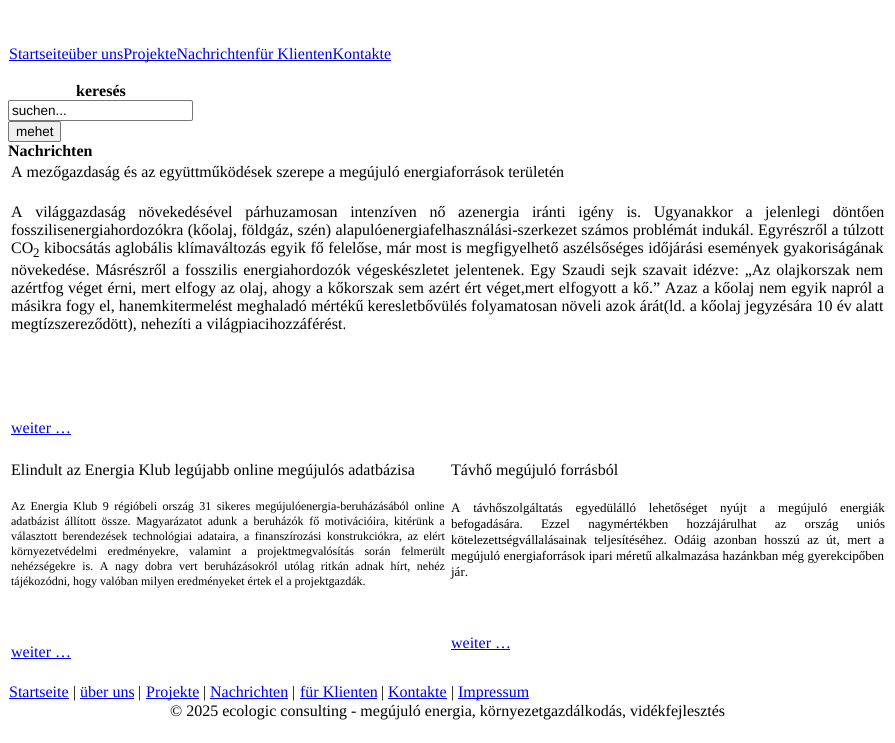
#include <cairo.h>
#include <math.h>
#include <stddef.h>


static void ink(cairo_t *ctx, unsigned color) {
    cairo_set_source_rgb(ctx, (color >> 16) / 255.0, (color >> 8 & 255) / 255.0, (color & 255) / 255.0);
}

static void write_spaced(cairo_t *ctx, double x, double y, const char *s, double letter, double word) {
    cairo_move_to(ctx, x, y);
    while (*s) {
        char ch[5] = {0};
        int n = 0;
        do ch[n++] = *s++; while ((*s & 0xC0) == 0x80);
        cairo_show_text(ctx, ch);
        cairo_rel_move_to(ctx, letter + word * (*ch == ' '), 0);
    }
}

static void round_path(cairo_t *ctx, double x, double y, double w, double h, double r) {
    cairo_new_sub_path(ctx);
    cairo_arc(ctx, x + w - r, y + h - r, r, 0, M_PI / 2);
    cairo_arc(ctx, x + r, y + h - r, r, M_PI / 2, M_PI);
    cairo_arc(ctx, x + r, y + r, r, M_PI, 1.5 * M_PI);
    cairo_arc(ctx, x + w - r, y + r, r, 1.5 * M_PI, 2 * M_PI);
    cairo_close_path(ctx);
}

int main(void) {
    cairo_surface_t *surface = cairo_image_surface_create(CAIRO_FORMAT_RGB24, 895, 743);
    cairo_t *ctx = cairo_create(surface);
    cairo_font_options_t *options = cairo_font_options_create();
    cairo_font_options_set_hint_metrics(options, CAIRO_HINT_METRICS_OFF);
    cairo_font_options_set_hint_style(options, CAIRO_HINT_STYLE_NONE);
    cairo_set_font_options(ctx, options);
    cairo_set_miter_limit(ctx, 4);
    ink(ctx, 0xFFFFFF);
    cairo_paint(ctx);
    ink(ctx, 0x0000EE);
    cairo_rectangle(ctx, 9, 60, 323, 1);
    cairo_fill(ctx);
    cairo_select_font_face(ctx, "Liberation Serif", CAIRO_FONT_SLANT_NORMAL, CAIRO_FONT_WEIGHT_NORMAL);
    cairo_set_font_size(ctx, 16);
    cairo_move_to(ctx, 9, 59);
    cairo_show_text(ctx, "Startseiteüber unsProjekteNachrichtenfür KlientenKontakte");
    cairo_rectangle(ctx, 332, 60, 59, 1);
    cairo_fill(ctx);
    cairo_select_font_face(ctx, "Liberation Serif", CAIRO_FONT_SLANT_NORMAL, CAIRO_FONT_WEIGHT_BOLD);
    ink(ctx, 0x000000);
    cairo_move_to(ctx, 76, 96);
    cairo_show_text(ctx, "keresés");
    round_path(ctx, 8.5, 100.5, 184, 20, 1.5);
    ink(ctx, 0x767676);
    cairo_set_line_width(ctx, 1);
    cairo_stroke(ctx);
    cairo_select_font_face(ctx, "Liberation Sans", CAIRO_FONT_SLANT_NORMAL, CAIRO_FONT_WEIGHT_NORMAL);
    cairo_set_font_size(ctx, 13.5);
    ink(ctx, 0x000000);
    cairo_move_to(ctx, 12, 115);
    cairo_show_text(ctx, "suchen...");
    ink(ctx, 0xEFEFEF);
    round_path(ctx, 8.5, 121.5, 52, 20, 1.5);
    cairo_fill_preserve(ctx);
    ink(ctx, 0x767676);
    cairo_stroke(ctx);
    ink(ctx, 0x000000);
    cairo_move_to(ctx, 16, 136);
    cairo_show_text(ctx, "mehet");
    cairo_select_font_face(ctx, "Liberation Serif", CAIRO_FONT_SLANT_NORMAL, CAIRO_FONT_WEIGHT_BOLD);
    cairo_set_font_size(ctx, 16);
    cairo_move_to(ctx, 8, 156);
    cairo_show_text(ctx, "Nachrichten");
    cairo_select_font_face(ctx, "Liberation Serif", CAIRO_FONT_SLANT_NORMAL, CAIRO_FONT_WEIGHT_NORMAL);
    cairo_move_to(ctx, 11, 177);
    cairo_show_text(ctx, "A mezőgazdaság és az együttműködések szerepe a megújuló energiaforrások területén");
    write_spaced(ctx, 11, 217, "A világgazdaság növekedésével párhuzamosan intenzíven nő azenergia iránti igény is. Ugyanakkor a jelenlegi döntően", 0, 8.6);
    write_spaced(ctx, 11, 235, "fosszilisenergiahordozókra (kőolaj, földgáz, szén) alapulóenergiafelhasználási-szerkezet számos problémát indukál. Egyrészről a túlzott", 0, 0.25);
    cairo_move_to(ctx, 11, 253);
    cairo_show_text(ctx, "CO");
    cairo_set_font_size(ctx, 13);
    cairo_move_to(ctx, 33, 257);
    cairo_show_text(ctx, "2");
    cairo_set_font_size(ctx, 16);
    write_spaced(ctx, 44, 253, "kibocsátás aglobális klímaváltozás egyik fő felelőse, már most is megfigyelhető aszélsőséges időjárási események gyakoriságának", 0, 0.4);
    write_spaced(ctx, 11, 275, "növekedése. Másrészről a fosszilis energiahordozók végeskészletet jelentenek. Egy Szaudi sejk szavait idézve: „Az olajkorszak nem", 0, 1.75);
    write_spaced(ctx, 11, 293, "azértfog véget érni, mert elfogy az olaj, ahogy a kőkorszak sem azért ért véget,mert elfogyott a kő.” Azaz a kőolaj nem egyik napról a", 0, 0.7);
    write_spaced(ctx, 11, 311, "másikra fogy el, hanemkitermelést meghaladó mértékű keresletbővülés folyamatosan növeli azok árát(ld. a kőolaj jegyzésára 10 év alatt", 0, 0.1);
    cairo_move_to(ctx, 11, 329);
    cairo_show_text(ctx, "megtízszereződött), nehezíti a világpiacihozzáférést.");
    ink(ctx, 0x0000EE);
    cairo_move_to(ctx, 11, 433);
    cairo_show_text(ctx, "weiter …");
    cairo_rectangle(ctx, 11, 434, 60, 1);
    cairo_fill(ctx);
    ink(ctx, 0x000000);
    cairo_move_to(ctx, 11, 475);
    cairo_show_text(ctx, "Elindult az Energia Klub legújabb online megújulós adatbázisa");
    cairo_set_font_size(ctx, 12);
    write_spaced(ctx, 11, 510, "Az Energia Klub 9 régióbeli ország 31 sikeres megújulóenergia-beruházásából online", 0, 2.5);
    write_spaced(ctx, 11, 525, "adatbázist állított össze. Magyarázatot adunk a beruházók fő motivációira, kitérünk a", 0, 2.6);
    write_spaced(ctx, 11, 540, "választott berendezések technológiai adataira, a finanszírozási konstrukciókra, az elért", 0, 2.5);
    write_spaced(ctx, 11, 555, "környezetvédelmi eredményekre, valamint a projektmegvalósítás során felmerült", 0, 7.5);
    write_spaced(ctx, 11, 570, "nehézségekre is. A nagy dobra vert beruházásokról utólag ritkán adnak hírt, nehéz", 0, 3.6);
    cairo_move_to(ctx, 11, 585);
    cairo_show_text(ctx, "tájékozódni, hogy valóban milyen eredményeket értek el a projektgazdák.");
    cairo_set_font_size(ctx, 16);
    ink(ctx, 0x0000EE);
    cairo_move_to(ctx, 11, 657);
    cairo_show_text(ctx, "weiter …");
    cairo_rectangle(ctx, 11, 658, 60, 1);
    cairo_fill(ctx);
    ink(ctx, 0x000000);
    cairo_move_to(ctx, 451, 475);
    cairo_show_text(ctx, "Távhő megújuló forrásból");
    cairo_set_font_size(ctx, 13);
    write_spaced(ctx, 451, 512, "A távhőszolgáltatás egyedülálló lehetőséget nyújt a megújuló energiák", 0, 9.5);
    write_spaced(ctx, 451, 528, "befogadására. Ezzel nagymértékben hozzájárulhat az ország uniós", 0, 15);
    write_spaced(ctx, 451, 544, "kötelezettségvállalásainak teljesítéséhez. Odáig azonban hosszú az út, mert a", 0, 4.25);
    write_spaced(ctx, 451, 560, "megújuló energiaforrások ipari méretű alkalmazása hazánkban még gyerekcipőben", 0, 0.25);
    cairo_move_to(ctx, 451, 576);
    cairo_show_text(ctx, "jár.");
    cairo_set_font_size(ctx, 16);
    ink(ctx, 0x0000EE);
    cairo_move_to(ctx, 451, 648);
    cairo_show_text(ctx, "weiter …");
    cairo_rectangle(ctx, 451, 649, 59, 1);
    cairo_fill(ctx);
    cairo_move_to(ctx, 9, 697);
    cairo_show_text(ctx, "Startseite");
    cairo_rectangle(ctx, 9, 698, 60, 1);
    cairo_fill(ctx);
    ink(ctx, 0x000000);
    cairo_move_to(ctx, 73, 697);
    cairo_show_text(ctx, "|");
    ink(ctx, 0x0000EE);
    cairo_move_to(ctx, 80, 697);
    cairo_show_text(ctx, "über uns");
    cairo_rectangle(ctx, 80, 698, 54, 1);
    cairo_fill(ctx);
    ink(ctx, 0x000000);
    cairo_move_to(ctx, 138, 697);
    cairo_show_text(ctx, "|");
    ink(ctx, 0x0000EE);
    cairo_rectangle(ctx, 146, 698, 53, 1);
    cairo_fill(ctx);
    cairo_move_to(ctx, 146, 697);
    cairo_show_text(ctx, "Projekte");
    ink(ctx, 0x000000);
    cairo_move_to(ctx, 203, 697);
    cairo_show_text(ctx, "|");
    ink(ctx, 0x0000EE);
    cairo_move_to(ctx, 210, 697);
    cairo_show_text(ctx, "Nachrichten");
    cairo_rectangle(ctx, 210, 698, 78, 1);
    cairo_fill(ctx);
    ink(ctx, 0x000000);
    cairo_move_to(ctx, 292, 697);
    cairo_show_text(ctx, "|");
    ink(ctx, 0x0000EE);
    cairo_move_to(ctx, 300, 697);
    cairo_show_text(ctx, "für Klienten");
    cairo_rectangle(ctx, 300, 698, 77, 1);
    cairo_fill(ctx);
    ink(ctx, 0x000000);
    cairo_move_to(ctx, 381, 697);
    cairo_show_text(ctx, "|");
    ink(ctx, 0x0000EE);
    cairo_move_to(ctx, 388, 697);
    cairo_show_text(ctx, "Kontakte");
    cairo_rectangle(ctx, 388, 698, 59, 1);
    cairo_fill(ctx);
    ink(ctx, 0x000000);
    cairo_move_to(ctx, 451, 697);
    cairo_show_text(ctx, "|");
    ink(ctx, 0x0000EE);
    cairo_rectangle(ctx, 458, 698, 71, 1);
    cairo_fill(ctx);
    cairo_move_to(ctx, 458, 697);
    cairo_show_text(ctx, "Impressum");
    ink(ctx, 0x000000);
    cairo_move_to(ctx, 170, 716);
    cairo_show_text(ctx, "© 2025 ecologic consulting - megújuló energia, környezetgazdálkodás, vidékfejlesztés");
    cairo_surface_write_to_png(surface, "image.png");
    cairo_font_options_destroy(options);
    cairo_destroy(ctx);
    cairo_surface_destroy(surface);
    return 0;
}
